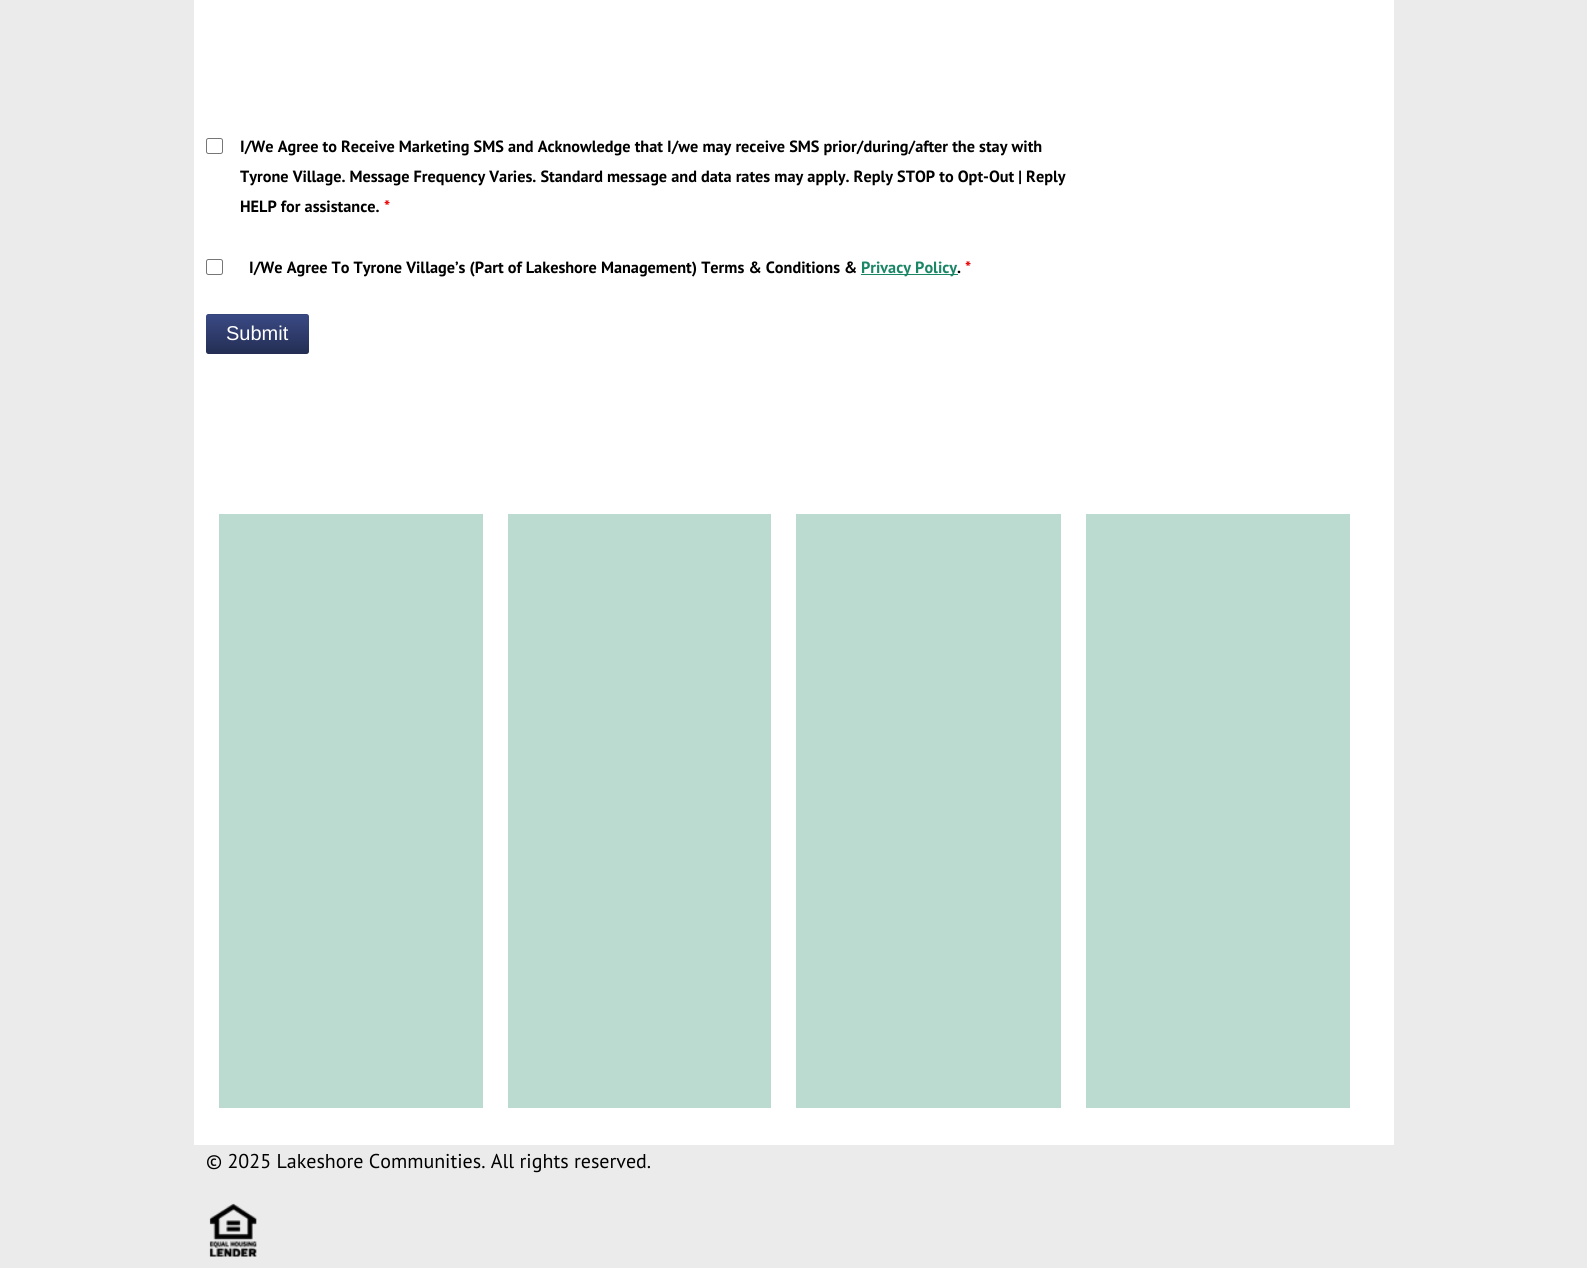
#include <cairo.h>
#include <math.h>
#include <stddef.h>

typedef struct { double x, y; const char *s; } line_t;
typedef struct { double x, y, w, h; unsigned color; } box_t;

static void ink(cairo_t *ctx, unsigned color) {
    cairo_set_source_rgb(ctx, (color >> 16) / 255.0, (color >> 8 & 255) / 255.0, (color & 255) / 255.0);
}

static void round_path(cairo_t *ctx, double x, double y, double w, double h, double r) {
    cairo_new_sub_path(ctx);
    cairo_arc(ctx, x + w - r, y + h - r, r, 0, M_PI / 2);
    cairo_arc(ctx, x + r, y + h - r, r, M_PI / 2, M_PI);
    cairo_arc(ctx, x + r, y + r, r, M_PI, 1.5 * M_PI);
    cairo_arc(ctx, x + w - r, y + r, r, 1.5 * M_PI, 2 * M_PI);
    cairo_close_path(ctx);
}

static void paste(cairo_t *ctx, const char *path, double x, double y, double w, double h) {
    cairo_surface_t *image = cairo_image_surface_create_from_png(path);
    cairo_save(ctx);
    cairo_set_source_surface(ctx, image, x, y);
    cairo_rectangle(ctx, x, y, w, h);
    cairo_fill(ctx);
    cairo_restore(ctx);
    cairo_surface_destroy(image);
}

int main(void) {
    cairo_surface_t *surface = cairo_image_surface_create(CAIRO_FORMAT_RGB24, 1587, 1268);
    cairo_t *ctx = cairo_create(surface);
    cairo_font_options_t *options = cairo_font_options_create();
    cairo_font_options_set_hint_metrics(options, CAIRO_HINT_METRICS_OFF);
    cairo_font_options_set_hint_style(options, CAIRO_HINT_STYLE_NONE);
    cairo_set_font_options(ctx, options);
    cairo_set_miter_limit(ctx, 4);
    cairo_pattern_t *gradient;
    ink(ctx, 0xEBEBEB);
    cairo_paint(ctx);
    ink(ctx, 0xFFFFFF);
    cairo_rectangle(ctx, 194, 0, 1200, 1145);
    cairo_fill(ctx);
    round_path(ctx, 206.5, 138.5, 16, 15, 2);
    ink(ctx, 0x767676);
    cairo_set_line_width(ctx, 1);
    cairo_stroke(ctx);
    cairo_select_font_face(ctx, "PT Sans", CAIRO_FONT_SLANT_NORMAL, CAIRO_FONT_WEIGHT_BOLD);
    cairo_set_font_size(ctx, 16.25);
    ink(ctx, 0x000000);
    {
        static const line_t items[] = {
            {240, 152, "I/We Agree to Receive Marketing SMS and Acknowledge that I/we may receive SMS prior/during/after the stay with"},
            {240, 182, "Tyrone Village. Message Frequency Varies. Standard message and data rates may apply. Reply STOP to Opt-Out | Reply"},
            {240, 212, "HELP for assistance."},
        };
        for (size_t i = 0; i < sizeof items / sizeof *items; i++) {
            cairo_move_to(ctx, items[i].x, items[i].y);
            cairo_show_text(ctx, items[i].s);
        }
    }
    ink(ctx, 0xE80000);
    cairo_move_to(ctx, 384, 212);
    cairo_show_text(ctx, "*");
    round_path(ctx, 206.5, 259.5, 16, 15, 2);
    ink(ctx, 0x767676);
    cairo_stroke(ctx);
    ink(ctx, 0x000000);
    cairo_move_to(ctx, 249, 273);
    cairo_show_text(ctx, "I/We Agree To Tyrone Village’s (Part of Lakeshore Management) Terms & Conditions &");
    ink(ctx, 0x1B8666);
    cairo_rectangle(ctx, 861, 274, 97, 1);
    cairo_fill(ctx);
    cairo_move_to(ctx, 861, 273);
    cairo_show_text(ctx, "Privacy Policy");
    ink(ctx, 0xE80000);
    cairo_move_to(ctx, 965, 273);
    cairo_show_text(ctx, "*");
    ink(ctx, 0x000000);
    cairo_move_to(ctx, 957, 273);
    cairo_show_text(ctx, ".");
    gradient = cairo_pattern_create_linear(258, 314, 258, 354);
    cairo_pattern_add_color_stop_rgba(gradient, 0, 0.227, 0.29, 0.522, 1);
    cairo_pattern_add_color_stop_rgba(gradient, 1, 0.141, 0.18, 0.325, 1);
    cairo_set_source(ctx, gradient);
    cairo_pattern_destroy(gradient);
    round_path(ctx, 206, 314, 103, 40, 2.5);
    cairo_fill(ctx);
    cairo_set_source_rgba(ctx, 0, 0, 0, 0.07);
    cairo_new_path(ctx);
    cairo_move_to(ctx, 209, 315);
    cairo_line_to(ctx, 306, 315);
    cairo_curve_to(ctx, 308, 315, 309, 316, 309, 318);
    cairo_line_to(ctx, 309, 316);
    cairo_curve_to(ctx, 309, 315, 308, 314, 306, 314);
    cairo_line_to(ctx, 208, 314);
    cairo_curve_to(ctx, 207, 314, 206, 315, 206, 316);
    cairo_line_to(ctx, 206, 318);
    cairo_curve_to(ctx, 206, 316, 207, 315, 209, 315);
    cairo_close_path(ctx);
    cairo_fill(ctx);
    cairo_select_font_face(ctx, "Liberation Sans", CAIRO_FONT_SLANT_NORMAL, CAIRO_FONT_WEIGHT_NORMAL);
    cairo_set_font_size(ctx, 20);
    ink(ctx, 0xFFFFFF);
    cairo_move_to(ctx, 226, 340);
    cairo_show_text(ctx, "Submit");
    {
        static const box_t items[] = {
            {219, 514, 264, 594, 0xBBDBD1},
            {508, 514, 263, 594, 0xBBDBD1},
            {796, 514, 265, 594, 0xBBDBD1},
            {1086, 514, 264, 594, 0xBBDBD1},
        };
        for (size_t i = 0; i < sizeof items / sizeof *items; i++) {
            ink(ctx, items[i].color);
            cairo_rectangle(ctx, items[i].x, items[i].y, items[i].w, items[i].h);
            cairo_fill(ctx);
        }
    }
    cairo_select_font_face(ctx, "PT Sans", CAIRO_FONT_SLANT_NORMAL, CAIRO_FONT_WEIGHT_NORMAL);
    ink(ctx, 0x000000);
    cairo_move_to(ctx, 206, 1168);
    cairo_show_text(ctx, "© 2025 Lakeshore Communities. All rights reserved.");
    paste(ctx, "media/1.png", 209, 1203, 48, 54);
    cairo_surface_write_to_png(surface, "image.png");
    cairo_font_options_destroy(options);
    cairo_destroy(ctx);
    cairo_surface_destroy(surface);
    return 0;
}
